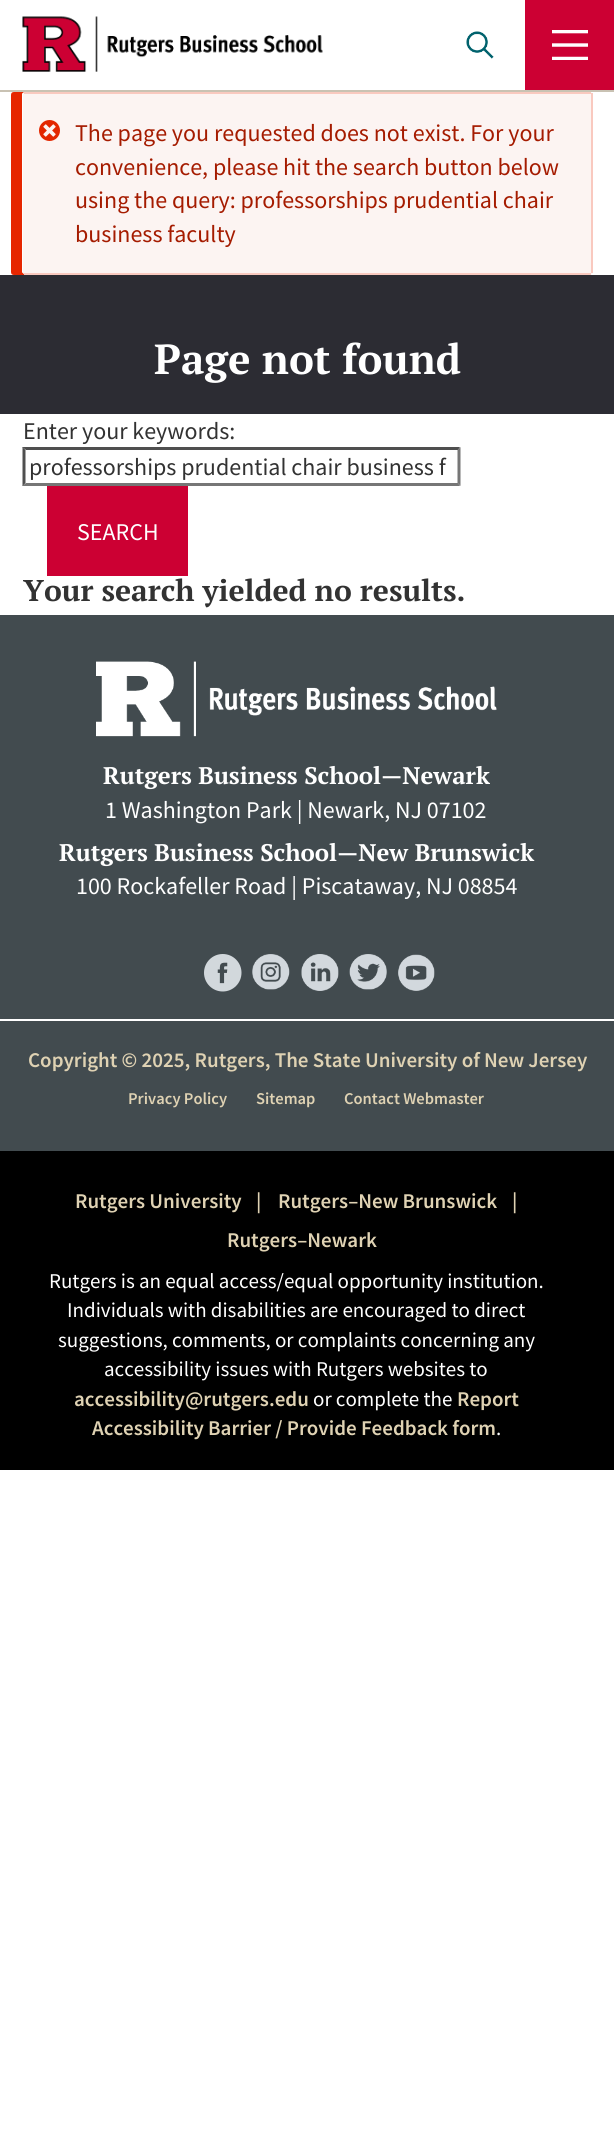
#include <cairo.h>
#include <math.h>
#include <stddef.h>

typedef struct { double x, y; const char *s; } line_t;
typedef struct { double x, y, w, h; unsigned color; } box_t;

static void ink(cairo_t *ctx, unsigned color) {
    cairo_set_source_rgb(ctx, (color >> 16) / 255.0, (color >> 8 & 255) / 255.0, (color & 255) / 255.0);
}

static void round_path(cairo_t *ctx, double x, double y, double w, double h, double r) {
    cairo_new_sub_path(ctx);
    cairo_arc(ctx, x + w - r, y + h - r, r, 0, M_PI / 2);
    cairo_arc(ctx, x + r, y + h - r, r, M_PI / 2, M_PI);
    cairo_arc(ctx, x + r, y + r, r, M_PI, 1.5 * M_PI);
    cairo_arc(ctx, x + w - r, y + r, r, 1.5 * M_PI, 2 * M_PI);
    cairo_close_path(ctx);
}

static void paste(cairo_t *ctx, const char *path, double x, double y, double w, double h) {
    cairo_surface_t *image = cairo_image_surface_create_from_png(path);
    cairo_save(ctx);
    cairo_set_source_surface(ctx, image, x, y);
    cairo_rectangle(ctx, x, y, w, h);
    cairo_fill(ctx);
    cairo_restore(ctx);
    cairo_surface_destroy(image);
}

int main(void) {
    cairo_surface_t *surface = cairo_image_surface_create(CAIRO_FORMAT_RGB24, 614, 2156);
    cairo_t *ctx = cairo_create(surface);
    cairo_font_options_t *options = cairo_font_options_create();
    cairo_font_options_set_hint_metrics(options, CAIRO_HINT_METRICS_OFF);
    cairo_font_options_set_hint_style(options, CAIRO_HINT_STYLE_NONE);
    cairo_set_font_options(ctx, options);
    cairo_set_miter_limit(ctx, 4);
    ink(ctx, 0xFFFFFF);
    cairo_paint(ctx);
    ink(ctx, 0xC9C2B3);
    cairo_rectangle(ctx, 0, 90, 614, 2);
    cairo_fill(ctx);
    paste(ctx, "media/1.png", 22, 16, 301, 56);
    ink(ctx, 0xCC0033);
    cairo_rectangle(ctx, 525, 0, 89, 90);
    cairo_fill(ctx);
    paste(ctx, "media/2.png", 552, 30, 36, 30);
    paste(ctx, "media/3.png", 466, 31, 28, 28);
    ink(ctx, 0xE62600);
    cairo_new_path(ctx);
    cairo_move_to(ctx, 14, 92);
    cairo_curve_to(ctx, 12, 92, 11, 93, 11, 95);
    cairo_line_to(ctx, 11, 272);
    cairo_curve_to(ctx, 11, 274, 12, 275, 14, 275);
    cairo_line_to(ctx, 578, 275);
    cairo_line_to(ctx, 580, 274);
    cairo_line_to(ctx, 26, 274);
    cairo_curve_to(ctx, 24, 274, 22, 273, 22, 272);
    cairo_line_to(ctx, 22, 94);
    cairo_curve_to(ctx, 22, 93, 23, 93, 24, 92);
    cairo_close_path(ctx);
    cairo_fill(ctx);
    ink(ctx, 0xFCF4F2);
    round_path(ctx, 23, 92, 570, 183, 3);
    cairo_fill(ctx);
    paste(ctx, "media/4.png", 39, 120, 21, 21);
    {
        static const box_t items[] = {
            {24, 92, 567, 2, 0xF9C9BF},
            {591, 93, 2, 180, 0xF9C9BF},
            {24, 273, 567, 2, 0xF9C9BF},
        };
        for (size_t i = 0; i < sizeof items / sizeof *items; i++) {
            ink(ctx, items[i].color);
            cairo_rectangle(ctx, items[i].x, items[i].y, items[i].w, items[i].h);
            cairo_fill(ctx);
        }
    }
    cairo_select_font_face(ctx, "Source Sans Pro", CAIRO_FONT_SLANT_NORMAL, CAIRO_FONT_WEIGHT_NORMAL);
    cairo_set_font_size(ctx, 24);
    ink(ctx, 0xA51B00);
    {
        static const line_t items[] = {
            {75, 141, "The page you requested does not exist. For your"},
            {75, 175, "convenience, please hit the search button below"},
            {75, 208, "using the query: professorships prudential chair"},
            {75, 242, "business faculty"},
        };
        for (size_t i = 0; i < sizeof items / sizeof *items; i++) {
            cairo_move_to(ctx, items[i].x, items[i].y);
            cairo_show_text(ctx, items[i].s);
        }
    }
    ink(ctx, 0x2C2C33);
    cairo_rectangle(ctx, 0, 275, 614, 139);
    cairo_fill(ctx);
    cairo_select_font_face(ctx, "PT Serif", CAIRO_FONT_SLANT_NORMAL, CAIRO_FONT_WEIGHT_BOLD);
    cairo_set_font_size(ctx, 42);
    ink(ctx, 0xFFFFFF);
    cairo_move_to(ctx, 154, 374);
    cairo_show_text(ctx, "Page not found");
    cairo_select_font_face(ctx, "Source Sans Pro", CAIRO_FONT_SLANT_NORMAL, CAIRO_FONT_WEIGHT_NORMAL);
    cairo_set_font_size(ctx, 24);
    ink(ctx, 0x323232);
    cairo_move_to(ctx, 23, 439);
    cairo_show_text(ctx, "Enter your keywords:");
    ink(ctx, 0x4F4F4F);
    cairo_new_path(ctx);
    cairo_move_to(ctx, 22, 447);
    cairo_line_to(ctx, 460, 447);
    cairo_line_to(ctx, 458, 450);
    cairo_line_to(ctx, 26, 450);
    cairo_close_path(ctx);
    cairo_fill(ctx);
    ink(ctx, 0x767676);
    cairo_new_path(ctx);
    cairo_move_to(ctx, 460.5, 447);
    cairo_line_to(ctx, 460.5, 486);
    cairo_line_to(ctx, 457.5, 483);
    cairo_line_to(ctx, 457.5, 450);
    cairo_close_path(ctx);
    cairo_fill(ctx);
    cairo_new_path(ctx);
    cairo_move_to(ctx, 460, 486);
    cairo_line_to(ctx, 22, 486);
    cairo_line_to(ctx, 26, 483);
    cairo_line_to(ctx, 458, 483);
    cairo_close_path(ctx);
    cairo_fill(ctx);
    ink(ctx, 0x4F4F4F);
    cairo_new_path(ctx);
    cairo_move_to(ctx, 22.5, 486);
    cairo_line_to(ctx, 22.5, 447);
    cairo_line_to(ctx, 25.5, 450);
    cairo_line_to(ctx, 25.5, 483);
    cairo_close_path(ctx);
    cairo_fill(ctx);
    ink(ctx, 0x323232);
    cairo_move_to(ctx, 29, 475);
    cairo_show_text(ctx, "professorships prudential chair business f");
    ink(ctx, 0xCC0033);
    cairo_rectangle(ctx, 47, 486, 141, 90);
    cairo_fill(ctx);
    ink(ctx, 0xFFFFFF);
    cairo_move_to(ctx, 77, 540);
    cairo_show_text(ctx, "SEARCH");
    cairo_select_font_face(ctx, "PT Serif", CAIRO_FONT_SLANT_NORMAL, CAIRO_FONT_WEIGHT_BOLD);
    cairo_set_font_size(ctx, 30);
    ink(ctx, 0x323232);
    cairo_move_to(ctx, 23, 601);
    cairo_show_text(ctx, "Your search yielded no results.");
    ink(ctx, 0x424B4F);
    cairo_rectangle(ctx, 0, 615, 614, 536);
    cairo_fill(ctx);
    paste(ctx, "media/5.png", 96, 661, 401, 76);
    cairo_set_font_size(ctx, 24);
    ink(ctx, 0xFFFFFF);
    cairo_move_to(ctx, 103, 784);
    cairo_show_text(ctx, "Rutgers Business School—Newark");
    cairo_select_font_face(ctx, "Source Sans Pro", CAIRO_FONT_SLANT_NORMAL, CAIRO_FONT_WEIGHT_NORMAL);
    cairo_move_to(ctx, 105, 818);
    cairo_show_text(ctx, "1 Washington Park | Newark, NJ 07102");
    cairo_select_font_face(ctx, "PT Serif", CAIRO_FONT_SLANT_NORMAL, CAIRO_FONT_WEIGHT_BOLD);
    cairo_move_to(ctx, 59, 861);
    cairo_show_text(ctx, "Rutgers Business School—New Brunswick");
    cairo_select_font_face(ctx, "Source Sans Pro", CAIRO_FONT_SLANT_NORMAL, CAIRO_FONT_WEIGHT_NORMAL);
    cairo_move_to(ctx, 76, 894);
    cairo_show_text(ctx, "100 Rockafeller Road | Piscataway, NJ 08854");
    paste(ctx, "media/6.png", 204, 954, 38, 38);
    paste(ctx, "media/7.png", 252, 954, 38, 36);
    paste(ctx, "media/8.png", 301, 954, 38, 37);
    paste(ctx, "media/9.png", 349, 954, 38, 36);
    paste(ctx, "media/10.png", 398, 954, 37, 37);
    cairo_rectangle(ctx, 0, 1019, 614, 2);
    cairo_fill(ctx);
    cairo_select_font_face(ctx, "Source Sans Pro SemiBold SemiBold", CAIRO_FONT_SLANT_NORMAL, CAIRO_FONT_WEIGHT_NORMAL);
    cairo_set_font_size(ctx, 21);
    ink(ctx, 0xDFD2B3);
    cairo_move_to(ctx, 28, 1067);
    cairo_show_text(ctx, "Copyright © 2025, Rutgers, The State University of New Jersey");
    cairo_set_font_size(ctx, 16.5);
    {
        static const line_t items[] = {
            {128, 1104, "Privacy Policy"},
            {256, 1104, "Sitemap"},
            {344, 1104, "Contact Webmaster"},
        };
        for (size_t i = 0; i < sizeof items / sizeof *items; i++) {
            cairo_move_to(ctx, items[i].x, items[i].y);
            cairo_show_text(ctx, items[i].s);
        }
    }
    ink(ctx, 0x000000);
    cairo_rectangle(ctx, 0, 1151, 614, 319);
    cairo_fill(ctx);
    cairo_set_font_size(ctx, 21);
    ink(ctx, 0xDFD2B3);
    {
        static const line_t items[] = {
            {75, 1208, "Rutgers University"},
            {256, 1208, "|"},
            {278, 1208, "Rutgers–New Brunswick"},
            {512, 1208, "|"},
            {227, 1247, "Rutgers–Newark"},
        };
        for (size_t i = 0; i < sizeof items / sizeof *items; i++) {
            cairo_move_to(ctx, items[i].x, items[i].y);
            cairo_show_text(ctx, items[i].s);
        }
    }
    cairo_select_font_face(ctx, "Source Sans Pro", CAIRO_FONT_SLANT_NORMAL, CAIRO_FONT_WEIGHT_NORMAL);
    ink(ctx, 0xFFFFFF);
    {
        static const line_t items[] = {
            {49, 1288, "Rutgers is an equal access/equal opportunity institution."},
            {67, 1317, "Individuals with disabilities are encouraged to direct"},
            {58, 1347, "suggestions, comments, or complaints concerning any"},
            {104, 1376, "accessibility issues with Rutgers websites to"},
        };
        for (size_t i = 0; i < sizeof items / sizeof *items; i++) {
            cairo_move_to(ctx, items[i].x, items[i].y);
            cairo_show_text(ctx, items[i].s);
        }
    }
    cairo_select_font_face(ctx, "Source Sans Pro SemiBold SemiBold", CAIRO_FONT_SLANT_NORMAL, CAIRO_FONT_WEIGHT_NORMAL);
    ink(ctx, 0xDFD2B3);
    cairo_move_to(ctx, 74, 1406);
    cairo_show_text(ctx, "accessibility@rutgers.edu");
    cairo_select_font_face(ctx, "Source Sans Pro", CAIRO_FONT_SLANT_NORMAL, CAIRO_FONT_WEIGHT_NORMAL);
    ink(ctx, 0xFFFFFF);
    cairo_move_to(ctx, 313, 1406);
    cairo_show_text(ctx, "or complete the");
    cairo_select_font_face(ctx, "Source Sans Pro SemiBold SemiBold", CAIRO_FONT_SLANT_NORMAL, CAIRO_FONT_WEIGHT_NORMAL);
    ink(ctx, 0xDFD2B3);
    cairo_move_to(ctx, 457, 1406);
    cairo_show_text(ctx, "Report");
    cairo_move_to(ctx, 92, 1435);
    cairo_show_text(ctx, "Accessibility Barrier / Provide Feedback form");
    cairo_select_font_face(ctx, "Source Sans Pro", CAIRO_FONT_SLANT_NORMAL, CAIRO_FONT_WEIGHT_NORMAL);
    ink(ctx, 0xFFFFFF);
    cairo_move_to(ctx, 496, 1435);
    cairo_show_text(ctx, ".");
    cairo_surface_write_to_png(surface, "image.png");
    cairo_font_options_destroy(options);
    cairo_destroy(ctx);
    cairo_surface_destroy(surface);
    return 0;
}
